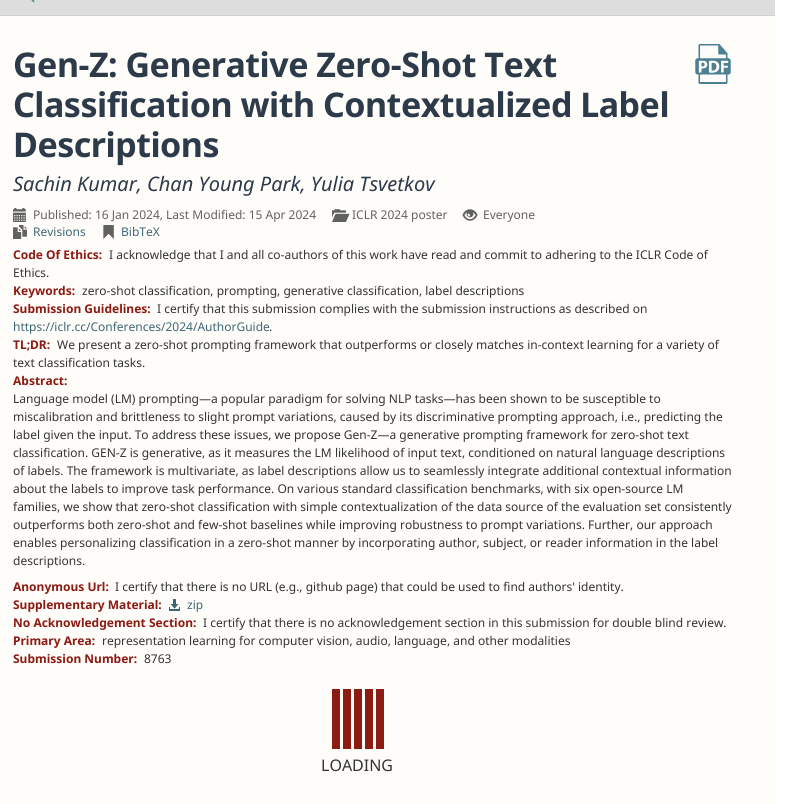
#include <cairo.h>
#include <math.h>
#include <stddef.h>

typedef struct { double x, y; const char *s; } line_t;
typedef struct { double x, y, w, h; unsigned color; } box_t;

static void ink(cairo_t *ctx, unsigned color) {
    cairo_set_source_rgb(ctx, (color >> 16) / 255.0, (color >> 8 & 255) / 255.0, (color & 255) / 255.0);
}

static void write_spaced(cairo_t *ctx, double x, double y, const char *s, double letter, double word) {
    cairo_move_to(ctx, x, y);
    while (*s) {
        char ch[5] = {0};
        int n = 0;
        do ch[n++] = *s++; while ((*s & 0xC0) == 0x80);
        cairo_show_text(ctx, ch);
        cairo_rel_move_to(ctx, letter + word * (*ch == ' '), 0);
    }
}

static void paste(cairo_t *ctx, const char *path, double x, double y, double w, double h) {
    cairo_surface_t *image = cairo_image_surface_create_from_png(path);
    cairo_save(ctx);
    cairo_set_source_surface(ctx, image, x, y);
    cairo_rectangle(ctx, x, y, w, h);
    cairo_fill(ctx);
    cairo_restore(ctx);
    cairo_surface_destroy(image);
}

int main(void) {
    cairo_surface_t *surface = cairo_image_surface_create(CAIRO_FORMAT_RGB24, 790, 804);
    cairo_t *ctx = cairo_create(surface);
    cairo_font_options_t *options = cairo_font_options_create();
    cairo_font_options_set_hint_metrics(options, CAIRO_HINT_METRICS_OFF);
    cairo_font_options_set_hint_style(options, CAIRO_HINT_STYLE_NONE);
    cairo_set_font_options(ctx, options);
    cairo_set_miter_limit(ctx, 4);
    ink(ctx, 0xFFFFFF);
    cairo_paint(ctx);
    {
        static const box_t items[] = {
            {0, 16, 775, 788, 0xFFFDFA},
            {0, 0, 775, 15, 0xDDDDDD},
            {0, 15, 775, 1, 0xD0D0D0},
        };
        for (size_t i = 0; i < sizeof items / sizeof *items; i++) {
            ink(ctx, items[i].color);
            cairo_rectangle(ctx, items[i].x, items[i].y, items[i].w, items[i].h);
            cairo_fill(ctx);
        }
    }
    paste(ctx, "media/1.png", 31, 0, 4, 3);
    cairo_select_font_face(ctx, "Noto Sans", CAIRO_FONT_SLANT_NORMAL, CAIRO_FONT_WEIGHT_BOLD);
    cairo_set_font_size(ctx, 34);
    ink(ctx, 0x2C3A4A);
    {
        static const line_t items[] = {
            {13, 77, "Gen-Z: Generative Zero-Shot Text"},
            {13, 117, "Classification with Contextualized Label"},
            {13, 157, "Descriptions"},
        };
        for (size_t i = 0; i < sizeof items / sizeof *items; i++) {
            write_spaced(ctx, items[i].x, items[i].y, items[i].s, -0.5, 0);
        }
    }
    paste(ctx, "media/2.png", 695, 44, 36, 40);
    cairo_select_font_face(ctx, "Noto Sans", CAIRO_FONT_SLANT_ITALIC, CAIRO_FONT_WEIGHT_NORMAL);
    cairo_set_font_size(ctx, 20);
    cairo_move_to(ctx, 13, 191);
    cairo_show_text(ctx, "Sachin Kumar, Chan Young Park, Yulia Tsvetkov");
    paste(ctx, "media/3.png", 13, 208, 13, 14);
    cairo_select_font_face(ctx, "Noto Sans", CAIRO_FONT_SLANT_NORMAL, CAIRO_FONT_WEIGHT_NORMAL);
    cairo_set_font_size(ctx, 12);
    ink(ctx, 0x616161);
    cairo_move_to(ctx, 33, 219);
    cairo_show_text(ctx, "Published: 16 Jan 2024, Last Modified: 15 Apr 2024");
    paste(ctx, "media/4.png", 332, 209, 18, 13);
    cairo_move_to(ctx, 352, 219);
    cairo_show_text(ctx, "ICLR 2024 poster");
    paste(ctx, "media/5.png", 462, 209, 16, 12);
    cairo_move_to(ctx, 483, 219);
    cairo_show_text(ctx, "Everyone");
    paste(ctx, "media/6.png", 13, 225, 14, 14);
    ink(ctx, 0x3E6775);
    cairo_move_to(ctx, 33, 236);
    cairo_show_text(ctx, "Revisions");
    paste(ctx, "media/7.png", 103, 225, 11, 14);
    cairo_move_to(ctx, 121, 236);
    cairo_show_text(ctx, "BibTeX");
    cairo_select_font_face(ctx, "Noto Sans", CAIRO_FONT_SLANT_NORMAL, CAIRO_FONT_WEIGHT_BOLD);
    ink(ctx, 0x8C1B13);
    cairo_move_to(ctx, 13, 259);
    cairo_show_text(ctx, "Code Of Ethics:");
    cairo_select_font_face(ctx, "Noto Sans", CAIRO_FONT_SLANT_NORMAL, CAIRO_FONT_WEIGHT_NORMAL);
    ink(ctx, 0x333333);
    cairo_move_to(ctx, 109, 259);
    cairo_show_text(ctx, "I acknowledge that I and all co-authors of this work have read and commit to adhering to the ICLR Code of");
    cairo_move_to(ctx, 13, 277);
    cairo_show_text(ctx, "Ethics.");
    cairo_select_font_face(ctx, "Noto Sans", CAIRO_FONT_SLANT_NORMAL, CAIRO_FONT_WEIGHT_BOLD);
    ink(ctx, 0x8C1B13);
    cairo_move_to(ctx, 13, 295);
    cairo_show_text(ctx, "Keywords:");
    cairo_select_font_face(ctx, "Noto Sans", CAIRO_FONT_SLANT_NORMAL, CAIRO_FONT_WEIGHT_NORMAL);
    ink(ctx, 0x333333);
    cairo_move_to(ctx, 82, 295);
    cairo_show_text(ctx, "zero-shot classification, prompting, generative classification, label descriptions");
    cairo_select_font_face(ctx, "Noto Sans", CAIRO_FONT_SLANT_NORMAL, CAIRO_FONT_WEIGHT_BOLD);
    ink(ctx, 0x8C1B13);
    cairo_move_to(ctx, 13, 313);
    cairo_show_text(ctx, "Submission Guidelines:");
    cairo_select_font_face(ctx, "Noto Sans", CAIRO_FONT_SLANT_NORMAL, CAIRO_FONT_WEIGHT_NORMAL);
    ink(ctx, 0x333333);
    cairo_move_to(ctx, 157, 313);
    cairo_show_text(ctx, "I certify that this submission complies with the submission instructions as described on");
    ink(ctx, 0x3E6775);
    cairo_move_to(ctx, 13, 331);
    cairo_show_text(ctx, "https://iclr.cc/Conferences/2024/AuthorGuide");
    ink(ctx, 0x333333);
    cairo_move_to(ctx, 269, 331);
    cairo_show_text(ctx, ".");
    cairo_select_font_face(ctx, "Noto Sans", CAIRO_FONT_SLANT_NORMAL, CAIRO_FONT_WEIGHT_BOLD);
    ink(ctx, 0x8C1B13);
    cairo_move_to(ctx, 13, 349);
    cairo_show_text(ctx, "TL;DR:");
    cairo_select_font_face(ctx, "Noto Sans", CAIRO_FONT_SLANT_NORMAL, CAIRO_FONT_WEIGHT_NORMAL);
    ink(ctx, 0x333333);
    cairo_move_to(ctx, 57, 349);
    cairo_show_text(ctx, "We present a zero-shot prompting framework that outperforms or closely matches in-context learning for a variety of");
    cairo_move_to(ctx, 13, 367);
    cairo_show_text(ctx, "text classification tasks.");
    cairo_select_font_face(ctx, "Noto Sans", CAIRO_FONT_SLANT_NORMAL, CAIRO_FONT_WEIGHT_BOLD);
    ink(ctx, 0x8C1B13);
    cairo_move_to(ctx, 13, 385);
    cairo_show_text(ctx, "Abstract:");
    cairo_select_font_face(ctx, "Noto Sans", CAIRO_FONT_SLANT_NORMAL, CAIRO_FONT_WEIGHT_NORMAL);
    ink(ctx, 0x333333);
    {
        static const line_t items[] = {
            {13, 403, "Language model (LM) prompting—a popular paradigm for solving NLP tasks—has been shown to be susceptible to"},
            {13, 421, "miscalibration and brittleness to slight prompt variations, caused by its discriminative prompting approach, i.e., predicting the"},
            {13, 439, "label given the input. To address these issues, we propose Gen-Z—a generative prompting framework for zero-shot text"},
            {13, 457, "classification. GEN-Z is generative, as it measures the LM likelihood of input text, conditioned on natural language descriptions"},
            {13, 475, "of labels. The framework is multivariate, as label descriptions allow us to seamlessly integrate additional contextual information"},
            {13, 493, "about the labels to improve task performance. On various standard classification benchmarks, with six open-source LM"},
            {13, 511, "families, we show that zero-shot classification with simple contextualization of the data source of the evaluation set consistently"},
            {13, 529, "outperforms both zero-shot and few-shot baselines while improving robustness to prompt variations. Further, our approach"},
            {13, 547, "enables personalizing classification in a zero-shot manner by incorporating author, subject, or reader information in the label"},
            {13, 565, "descriptions."},
        };
        for (size_t i = 0; i < sizeof items / sizeof *items; i++) {
            cairo_move_to(ctx, items[i].x, items[i].y);
            cairo_show_text(ctx, items[i].s);
        }
    }
    cairo_select_font_face(ctx, "Noto Sans", CAIRO_FONT_SLANT_NORMAL, CAIRO_FONT_WEIGHT_BOLD);
    ink(ctx, 0x8C1B13);
    cairo_move_to(ctx, 13, 591);
    cairo_show_text(ctx, "Anonymous Url:");
    cairo_select_font_face(ctx, "Noto Sans", CAIRO_FONT_SLANT_NORMAL, CAIRO_FONT_WEIGHT_NORMAL);
    ink(ctx, 0x333333);
    cairo_move_to(ctx, 115, 591);
    cairo_show_text(ctx, "I certify that there is no URL (e.g., github page) that could be used to find authors' identity.");
    cairo_select_font_face(ctx, "Noto Sans", CAIRO_FONT_SLANT_NORMAL, CAIRO_FONT_WEIGHT_BOLD);
    ink(ctx, 0x8C1B13);
    cairo_move_to(ctx, 13, 609);
    cairo_show_text(ctx, "Supplementary Material:");
    paste(ctx, "media/8.png", 169, 599, 11, 12);
    cairo_select_font_face(ctx, "Noto Sans", CAIRO_FONT_SLANT_NORMAL, CAIRO_FONT_WEIGHT_NORMAL);
    ink(ctx, 0x3E6775);
    cairo_move_to(ctx, 187, 609);
    cairo_show_text(ctx, "zip");
    cairo_select_font_face(ctx, "Noto Sans", CAIRO_FONT_SLANT_NORMAL, CAIRO_FONT_WEIGHT_BOLD);
    ink(ctx, 0x8C1B13);
    cairo_move_to(ctx, 13, 627);
    cairo_show_text(ctx, "No Acknowledgement Section:");
    cairo_select_font_face(ctx, "Noto Sans", CAIRO_FONT_SLANT_NORMAL, CAIRO_FONT_WEIGHT_NORMAL);
    ink(ctx, 0x333333);
    cairo_move_to(ctx, 203, 627);
    cairo_show_text(ctx, "I certify that there is no acknowledgement section in this submission for double blind review.");
    cairo_select_font_face(ctx, "Noto Sans", CAIRO_FONT_SLANT_NORMAL, CAIRO_FONT_WEIGHT_BOLD);
    ink(ctx, 0x8C1B13);
    cairo_move_to(ctx, 13, 645);
    cairo_show_text(ctx, "Primary Area:");
    cairo_select_font_face(ctx, "Noto Sans", CAIRO_FONT_SLANT_NORMAL, CAIRO_FONT_WEIGHT_NORMAL);
    ink(ctx, 0x333333);
    cairo_move_to(ctx, 102, 645);
    cairo_show_text(ctx, "representation learning for computer vision, audio, language, and other modalities");
    cairo_select_font_face(ctx, "Noto Sans", CAIRO_FONT_SLANT_NORMAL, CAIRO_FONT_WEIGHT_BOLD);
    ink(ctx, 0x8C1B13);
    cairo_move_to(ctx, 13, 663);
    cairo_show_text(ctx, "Submission Number:");
    cairo_select_font_face(ctx, "Noto Sans", CAIRO_FONT_SLANT_NORMAL, CAIRO_FONT_WEIGHT_NORMAL);
    ink(ctx, 0x333333);
    cairo_move_to(ctx, 144, 663);
    cairo_show_text(ctx, "8763");
    {
        static const box_t items[] = {
            {332, 689, 8, 60, 0x8C1B13},
            {343, 689, 8, 60, 0x8C1B13},
            {354, 689, 8, 60, 0x8C1B13},
            {365, 689, 8, 60, 0x8C1B13},
            {376, 689, 8, 60, 0x8C1B13},
        };
        for (size_t i = 0; i < sizeof items / sizeof *items; i++) {
            ink(ctx, items[i].color);
            cairo_rectangle(ctx, items[i].x, items[i].y, items[i].w, items[i].h);
            cairo_fill(ctx);
        }
    }
    cairo_set_font_size(ctx, 16);
    ink(ctx, 0x333333);
    cairo_move_to(ctx, 321, 771);
    cairo_show_text(ctx, "LOADING");
    cairo_surface_write_to_png(surface, "image.png");
    cairo_font_options_destroy(options);
    cairo_destroy(ctx);
    cairo_surface_destroy(surface);
    return 0;
}
